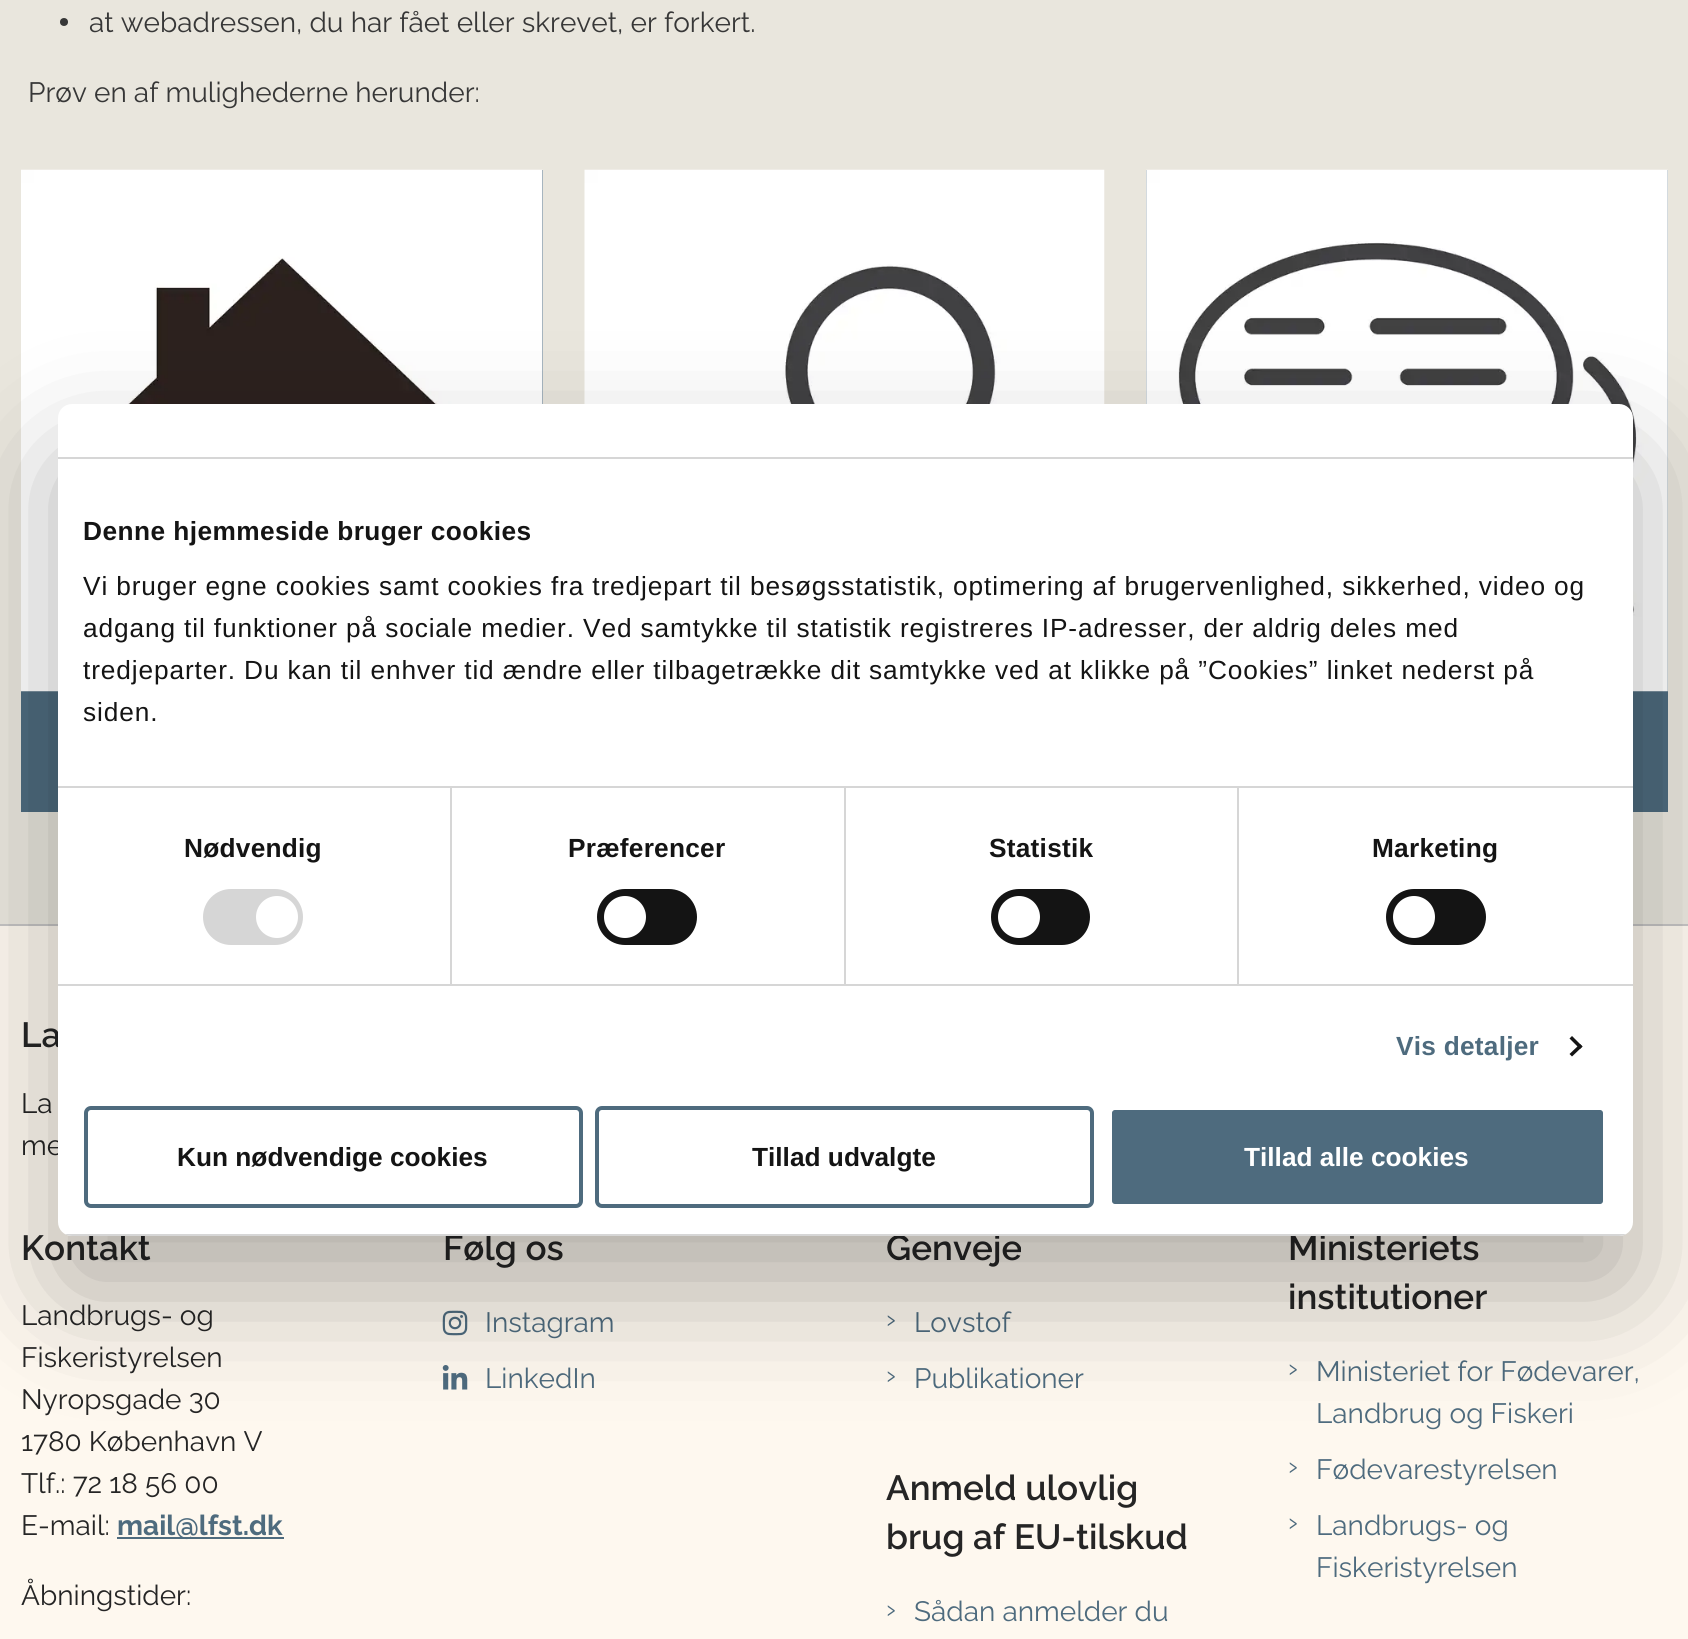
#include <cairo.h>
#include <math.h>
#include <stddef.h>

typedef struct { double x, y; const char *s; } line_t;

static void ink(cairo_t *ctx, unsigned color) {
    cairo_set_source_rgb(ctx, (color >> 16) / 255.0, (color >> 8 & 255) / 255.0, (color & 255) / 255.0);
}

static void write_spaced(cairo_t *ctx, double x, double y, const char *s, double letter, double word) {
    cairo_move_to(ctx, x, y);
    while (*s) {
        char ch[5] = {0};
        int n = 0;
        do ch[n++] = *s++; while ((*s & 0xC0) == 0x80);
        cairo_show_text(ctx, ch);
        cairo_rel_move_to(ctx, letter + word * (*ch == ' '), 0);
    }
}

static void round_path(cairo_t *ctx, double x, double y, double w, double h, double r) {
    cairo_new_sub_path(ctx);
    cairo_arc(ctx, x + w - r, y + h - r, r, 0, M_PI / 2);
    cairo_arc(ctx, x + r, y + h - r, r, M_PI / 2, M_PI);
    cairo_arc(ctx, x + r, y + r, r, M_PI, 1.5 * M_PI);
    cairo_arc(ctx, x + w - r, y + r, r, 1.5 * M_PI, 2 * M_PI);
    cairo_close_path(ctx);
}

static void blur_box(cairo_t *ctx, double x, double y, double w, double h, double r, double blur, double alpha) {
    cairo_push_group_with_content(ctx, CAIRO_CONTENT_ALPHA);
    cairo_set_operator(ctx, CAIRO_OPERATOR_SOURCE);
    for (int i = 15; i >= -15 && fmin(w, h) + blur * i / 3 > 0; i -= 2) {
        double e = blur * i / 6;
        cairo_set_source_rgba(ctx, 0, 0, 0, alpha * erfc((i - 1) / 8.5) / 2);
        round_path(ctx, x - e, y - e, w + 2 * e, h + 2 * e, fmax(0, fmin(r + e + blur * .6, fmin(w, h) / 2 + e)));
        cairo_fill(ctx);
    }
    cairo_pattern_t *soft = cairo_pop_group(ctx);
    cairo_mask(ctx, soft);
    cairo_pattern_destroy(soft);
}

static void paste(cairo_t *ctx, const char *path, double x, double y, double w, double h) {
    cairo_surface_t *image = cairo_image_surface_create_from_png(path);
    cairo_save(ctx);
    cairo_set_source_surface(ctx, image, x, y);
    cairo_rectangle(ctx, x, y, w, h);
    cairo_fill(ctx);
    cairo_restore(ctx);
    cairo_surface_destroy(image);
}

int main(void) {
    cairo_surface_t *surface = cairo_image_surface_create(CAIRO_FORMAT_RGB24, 1688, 1639);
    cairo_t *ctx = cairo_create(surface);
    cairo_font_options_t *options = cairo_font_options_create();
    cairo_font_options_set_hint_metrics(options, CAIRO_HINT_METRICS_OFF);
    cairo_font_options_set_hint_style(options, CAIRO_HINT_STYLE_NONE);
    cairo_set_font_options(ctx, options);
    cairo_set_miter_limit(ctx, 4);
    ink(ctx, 0xE9E6DD);
    cairo_paint(ctx);
    ink(ctx, 0x373737);
    cairo_arc(ctx, 64, 22, 4, 0, 2 * M_PI);
    cairo_fill(ctx);
    cairo_select_font_face(ctx, "Raleway", CAIRO_FONT_SLANT_NORMAL, CAIRO_FONT_WEIGHT_NORMAL);
    cairo_set_font_size(ctx, 28);
    cairo_move_to(ctx, 89, 32);
    cairo_show_text(ctx, "at webadressen, du har fået eller skrevet, er forkert.");
    cairo_move_to(ctx, 28, 102);
    cairo_show_text(ctx, "Prøv en af mulighederne herunder:");
    ink(ctx, 0x4E6B7E);
    cairo_rectangle(ctx, 21, 170, 522, 642);
    cairo_fill(ctx);
    paste(ctx, "media/1.png", 21, 169, 522, 523);
    paste(ctx, "media/2.png", 584, 169, 521, 235);
    cairo_rectangle(ctx, 1146, 170, 522, 642);
    cairo_fill(ctx);
    paste(ctx, "media/3.png", 1146, 169, 522, 523);
    ink(ctx, 0xC5C4C4);
    cairo_rectangle(ctx, 0, 924, 1688, 2);
    cairo_fill(ctx);
    ink(ctx, 0xFEF8EF);
    cairo_rectangle(ctx, 0, 926, 1688, 713);
    cairo_fill(ctx);
    cairo_select_font_face(ctx, "Raleway SemiBold", CAIRO_FONT_SLANT_NORMAL, CAIRO_FONT_WEIGHT_NORMAL);
    cairo_set_font_size(ctx, 35);
    ink(ctx, 0x252525);
    cairo_move_to(ctx, 21, 1047);
    cairo_show_text(ctx, "La");
    cairo_select_font_face(ctx, "Raleway", CAIRO_FONT_SLANT_NORMAL, CAIRO_FONT_WEIGHT_NORMAL);
    cairo_set_font_size(ctx, 28);
    cairo_move_to(ctx, 21, 1113);
    cairo_show_text(ctx, "La");
    cairo_move_to(ctx, 21, 1155);
    cairo_show_text(ctx, "me");
    cairo_select_font_face(ctx, "Raleway SemiBold", CAIRO_FONT_SLANT_NORMAL, CAIRO_FONT_WEIGHT_NORMAL);
    cairo_set_font_size(ctx, 35);
    cairo_move_to(ctx, 21, 1260);
    cairo_show_text(ctx, "Kontakt");
    cairo_select_font_face(ctx, "Raleway", CAIRO_FONT_SLANT_NORMAL, CAIRO_FONT_WEIGHT_NORMAL);
    cairo_set_font_size(ctx, 28);
    {
        static const line_t items[] = {
            {21, 1325, "Landbrugs- og"},
            {21, 1367, "Fiskeristyrelsen"},
            {21, 1409, "Nyropsgade 30"},
            {21, 1451, "1780 København V"},
            {21, 1493, "Tlf.: 72 18 56 00"},
            {21, 1535, "E-mail:"},
        };
        for (size_t i = 0; i < sizeof items / sizeof *items; i++) {
            cairo_move_to(ctx, items[i].x, items[i].y);
            cairo_show_text(ctx, items[i].s);
        }
    }
    ink(ctx, 0x4E6B7E);
    cairo_rectangle(ctx, 117, 1537, 167, 2);
    cairo_fill(ctx);
    cairo_select_font_face(ctx, "Raleway", CAIRO_FONT_SLANT_NORMAL, CAIRO_FONT_WEIGHT_BOLD);
    cairo_move_to(ctx, 117, 1535);
    cairo_show_text(ctx, "mail@lfst.dk");
    cairo_select_font_face(ctx, "Raleway", CAIRO_FONT_SLANT_NORMAL, CAIRO_FONT_WEIGHT_NORMAL);
    ink(ctx, 0x252525);
    cairo_move_to(ctx, 21, 1605);
    cairo_show_text(ctx, "Åbningstider:");
    cairo_select_font_face(ctx, "Raleway SemiBold", CAIRO_FONT_SLANT_NORMAL, CAIRO_FONT_WEIGHT_NORMAL);
    cairo_set_font_size(ctx, 35);
    cairo_move_to(ctx, 443, 1260);
    cairo_show_text(ctx, "Følg os");
    paste(ctx, "media/4.png", 442, 1310, 26, 26);
    cairo_select_font_face(ctx, "Raleway", CAIRO_FONT_SLANT_NORMAL, CAIRO_FONT_WEIGHT_NORMAL);
    cairo_set_font_size(ctx, 28);
    ink(ctx, 0x4E6B7E);
    cairo_move_to(ctx, 485, 1332);
    cairo_show_text(ctx, "Instagram");
    paste(ctx, "media/5.png", 442, 1365, 26, 25);
    cairo_move_to(ctx, 485, 1388);
    cairo_show_text(ctx, "LinkedIn");
    cairo_select_font_face(ctx, "Raleway SemiBold", CAIRO_FONT_SLANT_NORMAL, CAIRO_FONT_WEIGHT_NORMAL);
    cairo_set_font_size(ctx, 35);
    ink(ctx, 0x252525);
    cairo_move_to(ctx, 886, 1260);
    cairo_show_text(ctx, "Genveje");
    cairo_select_font_face(ctx, "Raleway", CAIRO_FONT_SLANT_NORMAL, CAIRO_FONT_WEIGHT_NORMAL);
    cairo_set_font_size(ctx, 28);
    ink(ctx, 0x4E6B7E);
    {
        static const line_t items[] = {
            {886, 1328, "›"},
            {914, 1332, "Lovstof"},
            {886, 1384, "›"},
            {914, 1388, "Publikationer"},
        };
        for (size_t i = 0; i < sizeof items / sizeof *items; i++) {
            cairo_move_to(ctx, items[i].x, items[i].y);
            cairo_show_text(ctx, items[i].s);
        }
    }
    cairo_select_font_face(ctx, "Raleway SemiBold", CAIRO_FONT_SLANT_NORMAL, CAIRO_FONT_WEIGHT_NORMAL);
    cairo_set_font_size(ctx, 35);
    ink(ctx, 0x252525);
    cairo_move_to(ctx, 886, 1500);
    cairo_show_text(ctx, "Anmeld ulovlig");
    cairo_move_to(ctx, 886, 1549);
    cairo_show_text(ctx, "brug af EU-tilskud");
    cairo_select_font_face(ctx, "Raleway", CAIRO_FONT_SLANT_NORMAL, CAIRO_FONT_WEIGHT_NORMAL);
    cairo_set_font_size(ctx, 28);
    ink(ctx, 0x4E6B7E);
    cairo_move_to(ctx, 886, 1618);
    cairo_show_text(ctx, "›");
    cairo_move_to(ctx, 914, 1621);
    cairo_show_text(ctx, "Sådan anmelder du");
    cairo_select_font_face(ctx, "Raleway SemiBold", CAIRO_FONT_SLANT_NORMAL, CAIRO_FONT_WEIGHT_NORMAL);
    cairo_set_font_size(ctx, 35);
    ink(ctx, 0x252525);
    cairo_move_to(ctx, 1288, 1260);
    cairo_show_text(ctx, "Ministeriets");
    cairo_move_to(ctx, 1288, 1309);
    cairo_show_text(ctx, "institutioner");
    cairo_select_font_face(ctx, "Raleway", CAIRO_FONT_SLANT_NORMAL, CAIRO_FONT_WEIGHT_NORMAL);
    cairo_set_font_size(ctx, 28);
    ink(ctx, 0x4E6B7E);
    {
        static const line_t items[] = {
            {1288, 1377, "›"},
            {1316, 1381, "Ministeriet for Fødevarer,"},
            {1316, 1423, "Landbrug og Fiskeri"},
            {1288, 1475, "›"},
            {1316, 1479, "Fødevarestyrelsen"},
            {1288, 1531, "›"},
            {1316, 1535, "Landbrugs- og"},
            {1316, 1577, "Fiskeristyrelsen"},
        };
        for (size_t i = 0; i < sizeof items / sizeof *items; i++) {
            cairo_move_to(ctx, items[i].x, items[i].y);
            cairo_show_text(ctx, items[i].s);
        }
    }
    ink(ctx, 0x000000);
    blur_box(ctx, 58, 460, 1575, 832, 14, 59.5, 0.3);
    ink(ctx, 0xFFFFFF);
    round_path(ctx, 58, 404, 1575, 832, 14);
    cairo_fill(ctx);
    ink(ctx, 0xD6D6D6);
    cairo_rectangle(ctx, 58, 457, 1575, 2);
    cairo_fill(ctx);
    cairo_rectangle(ctx, 58, 786, 1575, 2);
    cairo_fill(ctx);
    cairo_select_font_face(ctx, "Liberation Sans", CAIRO_FONT_SLANT_NORMAL, CAIRO_FONT_WEIGHT_BOLD);
    cairo_set_font_size(ctx, 26.25);
    ink(ctx, 0x141414);
    write_spaced(ctx, 83, 540, "Denne hjemmeside bruger cookies", 0.45, 0);
    cairo_select_font_face(ctx, "Liberation Sans", CAIRO_FONT_SLANT_NORMAL, CAIRO_FONT_WEIGHT_NORMAL);
    {
        static const line_t items[] = {
            {83, 595, "Vi bruger egne cookies samt cookies fra tredjepart til besøgsstatistik, optimering af brugervenlighed, sikkerhed, video og"},
            {83, 637, "adgang til funktioner på sociale medier. Ved samtykke til statistik registreres IP-adresser, der aldrig deles med"},
            {83, 679, "tredjeparter. Du kan til enhver tid ændre eller tilbagetrække dit samtykke ved at klikke på ”Cookies” linket nederst på"},
            {83, 721, "siden."},
        };
        for (size_t i = 0; i < sizeof items / sizeof *items; i++) {
            write_spaced(ctx, items[i].x, items[i].y, items[i].s, 0.88, 0);
        }
    }
    ink(ctx, 0xD6D6D6);
    cairo_rectangle(ctx, 58, 984, 1575, 2);
    cairo_fill(ctx);
    cairo_rectangle(ctx, 450, 788, 2, 196);
    cairo_fill(ctx);
    cairo_select_font_face(ctx, "Liberation Sans", CAIRO_FONT_SLANT_NORMAL, CAIRO_FONT_WEIGHT_BOLD);
    ink(ctx, 0x141414);
    write_spaced(ctx, 184, 857, "Nødvendig", 0.25, 0);
    ink(ctx, 0xD6D6D6);
    round_path(ctx, 203, 889, 100, 56, 28);
    cairo_fill(ctx);
    ink(ctx, 0xFFFFFF);
    cairo_arc(ctx, 277, 917, 21, 0, 2 * M_PI);
    cairo_fill(ctx);
    ink(ctx, 0xD6D6D6);
    cairo_rectangle(ctx, 844, 788, 2, 196);
    cairo_fill(ctx);
    ink(ctx, 0x141414);
    write_spaced(ctx, 568, 857, "Præferencer", 0.25, 0);
    round_path(ctx, 597, 889, 100, 56, 28);
    cairo_fill(ctx);
    ink(ctx, 0xFFFFFF);
    cairo_arc(ctx, 625, 917, 21, 0, 2 * M_PI);
    cairo_fill(ctx);
    ink(ctx, 0xD6D6D6);
    cairo_rectangle(ctx, 1237, 788, 2, 196);
    cairo_fill(ctx);
    ink(ctx, 0x141414);
    write_spaced(ctx, 989, 857, "Statistik", 0.25, 0);
    round_path(ctx, 991, 889, 99, 56, 28);
    cairo_fill(ctx);
    ink(ctx, 0xFFFFFF);
    cairo_arc(ctx, 1019, 917, 21, 0, 2 * M_PI);
    cairo_fill(ctx);
    ink(ctx, 0x141414);
    write_spaced(ctx, 1372, 857, "Marketing", 0.25, 0);
    round_path(ctx, 1386, 889, 100, 56, 28);
    cairo_fill(ctx);
    ink(ctx, 0xFFFFFF);
    cairo_arc(ctx, 1414, 917, 21, 0, 2 * M_PI);
    cairo_fill(ctx);
    ink(ctx, 0x4E6B7E);
    write_spaced(ctx, 1396, 1055, "Vis detaljer", 0.25, 0);
    ink(ctx, 0x141414);
    cairo_new_path(ctx);
    cairo_move_to(ctx, 1572, 1036);
    cairo_line_to(ctx, 1582.5, 1046.5);
    cairo_line_to(ctx, 1580, 1049);
    cairo_line_to(ctx, 1569.5, 1038.5);
    cairo_close_path(ctx);
    cairo_fill(ctx);
    cairo_new_path(ctx);
    cairo_move_to(ctx, 1580, 1044);
    cairo_line_to(ctx, 1582.5, 1046.5);
    cairo_line_to(ctx, 1572, 1056.5);
    cairo_line_to(ctx, 1569.5, 1054);
    cairo_close_path(ctx);
    cairo_fill(ctx);
    cairo_save(ctx);
    round_path(ctx, 58, 404, 1575, 832, 14);
    cairo_clip(ctx);
    ink(ctx, 0xD6D6D6);
    cairo_rectangle(ctx, 58, 1234, 1575, 2);
    cairo_fill(ctx);
    cairo_restore(ctx);
    round_path(ctx, 86, 1108, 495, 98, 5);
    ink(ctx, 0x4E6B7E);
    cairo_set_line_width(ctx, 4);
    cairo_stroke(ctx);
    ink(ctx, 0x141414);
    cairo_move_to(ctx, 177, 1166);
    cairo_show_text(ctx, "Kun nødvendige cookies");
    round_path(ctx, 597, 1108, 495, 98, 5);
    ink(ctx, 0x4E6B7E);
    cairo_stroke(ctx);
    ink(ctx, 0x141414);
    cairo_move_to(ctx, 752, 1166);
    cairo_show_text(ctx, "Tillad udvalgte");
    ink(ctx, 0x4E6B7E);
    round_path(ctx, 1110, 1108, 495, 98, 5);
    cairo_fill_preserve(ctx);
    ink(ctx, 0xFFFFFF);
    cairo_stroke(ctx);
    cairo_move_to(ctx, 1244, 1166);
    cairo_show_text(ctx, "Tillad alle cookies");
    cairo_surface_write_to_png(surface, "image.png");
    cairo_font_options_destroy(options);
    cairo_destroy(ctx);
    cairo_surface_destroy(surface);
    return 0;
}
